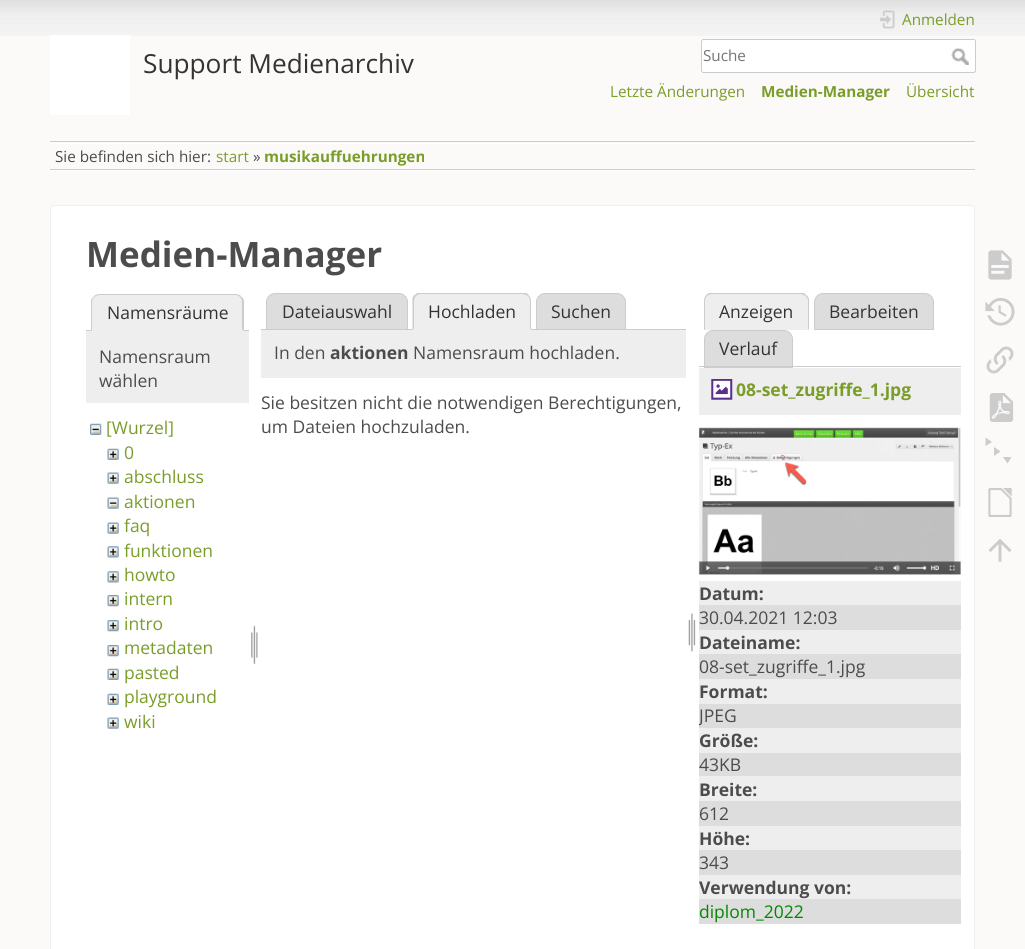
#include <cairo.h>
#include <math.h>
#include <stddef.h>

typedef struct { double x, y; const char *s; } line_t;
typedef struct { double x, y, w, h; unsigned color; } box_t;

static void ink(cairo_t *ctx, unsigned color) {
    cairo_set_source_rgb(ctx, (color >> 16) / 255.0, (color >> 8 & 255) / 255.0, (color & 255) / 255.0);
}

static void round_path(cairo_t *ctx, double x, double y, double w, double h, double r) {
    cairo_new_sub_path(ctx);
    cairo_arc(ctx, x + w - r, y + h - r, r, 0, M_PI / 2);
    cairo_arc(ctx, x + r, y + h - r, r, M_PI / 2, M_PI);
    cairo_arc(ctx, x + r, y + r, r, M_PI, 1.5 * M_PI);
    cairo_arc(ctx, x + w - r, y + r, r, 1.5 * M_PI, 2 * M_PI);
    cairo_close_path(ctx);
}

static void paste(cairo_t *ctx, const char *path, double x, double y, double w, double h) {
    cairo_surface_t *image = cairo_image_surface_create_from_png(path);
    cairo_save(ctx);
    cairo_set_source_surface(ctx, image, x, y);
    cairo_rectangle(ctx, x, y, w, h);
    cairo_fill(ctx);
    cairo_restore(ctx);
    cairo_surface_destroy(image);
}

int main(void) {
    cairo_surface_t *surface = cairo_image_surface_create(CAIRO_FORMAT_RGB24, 1025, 949);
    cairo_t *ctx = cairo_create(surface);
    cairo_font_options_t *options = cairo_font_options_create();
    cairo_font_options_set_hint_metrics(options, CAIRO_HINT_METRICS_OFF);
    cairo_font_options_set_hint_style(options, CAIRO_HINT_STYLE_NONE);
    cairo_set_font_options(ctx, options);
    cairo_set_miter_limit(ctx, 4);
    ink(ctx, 0xFBFAF9);
    cairo_paint(ctx);
    paste(ctx, "media/1.png", 0, 0, 1025, 36);
    ink(ctx, 0xFFFFFF);
    cairo_rectangle(ctx, 50, 35, 80, 80);
    cairo_fill(ctx);
    cairo_select_font_face(ctx, "Open Sans", CAIRO_FONT_SLANT_NORMAL, CAIRO_FONT_WEIGHT_NORMAL);
    cairo_set_font_size(ctx, 26.25);
    ink(ctx, 0x333333);
    cairo_move_to(ctx, 143, 73);
    cairo_show_text(ctx, "Support Medienarchiv");
    paste(ctx, "media/2.png", 880, 10, 15, 19);
    cairo_set_font_size(ctx, 15.25);
    ink(ctx, 0x7A9D29);
    cairo_move_to(ctx, 902, 25);
    cairo_show_text(ctx, "Anmelden");
    ink(ctx, 0xFFFFFF);
    round_path(ctx, 701.5, 39.5, 274, 33, 2);
    cairo_fill_preserve(ctx);
    ink(ctx, 0xCCCCCC);
    cairo_set_line_width(ctx, 1);
    cairo_stroke(ctx);
    ink(ctx, 0x757575);
    cairo_move_to(ctx, 703, 61);
    cairo_show_text(ctx, "Suche");
    paste(ctx, "media/3.png", 951, 48, 18, 17);
    ink(ctx, 0x7A9D29);
    cairo_move_to(ctx, 610, 97);
    cairo_show_text(ctx, "Letzte Änderungen");
    cairo_select_font_face(ctx, "Open Sans", CAIRO_FONT_SLANT_NORMAL, CAIRO_FONT_WEIGHT_BOLD);
    cairo_move_to(ctx, 761, 97);
    cairo_show_text(ctx, "Medien-Manager");
    cairo_select_font_face(ctx, "Open Sans", CAIRO_FONT_SLANT_NORMAL, CAIRO_FONT_WEIGHT_NORMAL);
    cairo_move_to(ctx, 906, 97);
    cairo_show_text(ctx, "Übersicht");
    {
        static const box_t items[] = {
            {50, 141, 925, 1, 0xCCCCCC},
            {50, 170, 925, 1, 0xFFFFFF},
            {50, 143, 925, 1, 0xFFFFFF},
            {50, 169, 925, 1, 0xCCCCCC},
        };
        for (size_t i = 0; i < sizeof items / sizeof *items; i++) {
            ink(ctx, items[i].color);
            cairo_rectangle(ctx, items[i].x, items[i].y, items[i].w, items[i].h);
            cairo_fill(ctx);
        }
    }
    ink(ctx, 0x4C4C4C);
    cairo_move_to(ctx, 55, 162);
    cairo_show_text(ctx, "Sie befinden sich hier:");
    ink(ctx, 0x7A9D29);
    cairo_move_to(ctx, 216, 162);
    cairo_show_text(ctx, "start");
    ink(ctx, 0x4C4C4C);
    cairo_move_to(ctx, 253, 162);
    cairo_show_text(ctx, "»");
    cairo_select_font_face(ctx, "Open Sans", CAIRO_FONT_SLANT_NORMAL, CAIRO_FONT_WEIGHT_BOLD);
    ink(ctx, 0x7A9D29);
    cairo_move_to(ctx, 264, 162);
    cairo_show_text(ctx, "musikauffuehrungen");
    ink(ctx, 0xFFFFFF);
    round_path(ctx, 50.5, 205.5, 924, 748, 3.5);
    cairo_fill_preserve(ctx);
    ink(ctx, 0xEEEEEE);
    cairo_stroke(ctx);
    cairo_set_font_size(ctx, 35);
    ink(ctx, 0x4C4C4C);
    cairo_move_to(ctx, 86, 267);
    cairo_show_text(ctx, "Medien-Manager");
    ink(ctx, 0xCCCCCC);
    cairo_rectangle(ctx, 86, 330, 163, 1);
    cairo_fill(ctx);
    ink(ctx, 0xEEEEEE);
    cairo_new_path(ctx);
    cairo_move_to(ctx, 100, 294);
    cairo_line_to(ctx, 235, 294);
    cairo_curve_to(ctx, 240, 294, 244, 298, 244, 303);
    cairo_line_to(ctx, 244, 331);
    cairo_line_to(ctx, 91, 331);
    cairo_line_to(ctx, 91, 303);
    cairo_curve_to(ctx, 91, 298, 95, 294, 100, 294);
    cairo_close_path(ctx);
    cairo_fill(ctx);
    ink(ctx, 0xCCCCCC);
    cairo_new_path(ctx);
    cairo_move_to(ctx, 100, 294);
    cairo_curve_to(ctx, 98, 294, 95, 295, 94, 296);
    cairo_line_to(ctx, 94, 297);
    cairo_curve_to(ctx, 96, 296, 98, 295, 100, 295);
    cairo_line_to(ctx, 235, 295);
    cairo_curve_to(ctx, 237, 295, 239, 296, 240, 297);
    cairo_line_to(ctx, 241, 296);
    cairo_curve_to(ctx, 240, 295, 237, 294, 235, 294);
    cairo_close_path(ctx);
    cairo_fill(ctx);
    cairo_new_path(ctx);
    cairo_move_to(ctx, 241, 296.5);
    cairo_curve_to(ctx, 242.5, 297.5, 243.5, 299, 244, 300);
    cairo_line_to(ctx, 244, 331);
    cairo_line_to(ctx, 242, 329.5);
    cairo_line_to(ctx, 242, 302);
    cairo_curve_to(ctx, 242, 300, 241.5, 298.5, 240, 297.5);
    cairo_close_path(ctx);
    cairo_fill(ctx);
    ink(ctx, 0xEEEEEE);
    cairo_new_path(ctx);
    cairo_move_to(ctx, 244, 331);
    cairo_line_to(ctx, 92, 331);
    cairo_line_to(ctx, 92, 330);
    cairo_line_to(ctx, 242, 330);
    cairo_close_path(ctx);
    cairo_fill(ctx);
    ink(ctx, 0xCCCCCC);
    cairo_new_path(ctx);
    cairo_move_to(ctx, 91, 300);
    cairo_curve_to(ctx, 91.5, 299, 92.5, 297.5, 94, 296.5);
    cairo_line_to(ctx, 94.5, 297);
    cairo_curve_to(ctx, 93, 298, 92, 300, 92, 302);
    cairo_line_to(ctx, 92, 330);
    cairo_line_to(ctx, 92.5, 330);
    cairo_line_to(ctx, 91, 331);
    cairo_close_path(ctx);
    cairo_fill(ctx);
    cairo_select_font_face(ctx, "Open Sans", CAIRO_FONT_SLANT_NORMAL, CAIRO_FONT_WEIGHT_NORMAL);
    cairo_set_font_size(ctx, 17.5);
    ink(ctx, 0x333333);
    cairo_move_to(ctx, 107, 319);
    cairo_show_text(ctx, "Namensräume");
    ink(ctx, 0xEEEEEE);
    cairo_rectangle(ctx, 86, 331, 163, 72);
    cairo_fill(ctx);
    ink(ctx, 0x4C4C4C);
    cairo_move_to(ctx, 99, 363);
    cairo_show_text(ctx, "Namensraum");
    cairo_move_to(ctx, 99, 387);
    cairo_show_text(ctx, "wählen");
    paste(ctx, "media/4.png", 90, 423, 12, 12);
    ink(ctx, 0x7A9D29);
    cairo_move_to(ctx, 106, 434);
    cairo_show_text(ctx, "[Wurzel]");
    paste(ctx, "media/5.png", 107, 448, 12, 12);
    cairo_move_to(ctx, 124, 459);
    cairo_show_text(ctx, "0");
    paste(ctx, "media/6.png", 107, 472, 12, 12);
    cairo_move_to(ctx, 124, 483);
    cairo_show_text(ctx, "abschluss");
    paste(ctx, "media/7.png", 107, 497, 12, 12);
    cairo_move_to(ctx, 124, 508);
    cairo_show_text(ctx, "aktionen");
    paste(ctx, "media/6.png", 107, 522, 12, 12);
    cairo_move_to(ctx, 124, 532);
    cairo_show_text(ctx, "faq");
    paste(ctx, "media/8.png", 107, 546, 12, 12);
    cairo_move_to(ctx, 124, 557);
    cairo_show_text(ctx, "funktionen");
    paste(ctx, "media/8.png", 107, 571, 12, 12);
    cairo_move_to(ctx, 124, 581);
    cairo_show_text(ctx, "howto");
    paste(ctx, "media/9.png", 107, 595, 12, 12);
    cairo_move_to(ctx, 124, 605);
    cairo_show_text(ctx, "intern");
    paste(ctx, "media/9.png", 107, 620, 12, 12);
    cairo_move_to(ctx, 124, 630);
    cairo_show_text(ctx, "intro");
    paste(ctx, "media/9.png", 107, 645, 12, 12);
    cairo_move_to(ctx, 124, 654);
    cairo_show_text(ctx, "metadaten");
    paste(ctx, "media/5.png", 107, 668, 12, 12);
    cairo_move_to(ctx, 124, 679);
    cairo_show_text(ctx, "pasted");
    paste(ctx, "media/5.png", 107, 693, 12, 12);
    cairo_move_to(ctx, 124, 703);
    cairo_show_text(ctx, "playground");
    paste(ctx, "media/6.png", 107, 717, 12, 12);
    cairo_move_to(ctx, 124, 728);
    cairo_show_text(ctx, "wiki");
    paste(ctx, "media/10.png", 251, 625, 7, 39);
    ink(ctx, 0xDDDDDD);
    cairo_new_path(ctx);
    cairo_move_to(ctx, 275, 293.5);
    cairo_line_to(ctx, 399, 293.5);
    cairo_curve_to(ctx, 403.5, 293.5, 407.5, 297.5, 407.5, 302);
    cairo_line_to(ctx, 407.5, 329.5);
    cairo_line_to(ctx, 266.5, 329.5);
    cairo_line_to(ctx, 266.5, 302);
    cairo_curve_to(ctx, 266.5, 297.5, 270.5, 293.5, 275, 293.5);
    cairo_close_path(ctx);
    cairo_fill_preserve(ctx);
    ink(ctx, 0xCCCCCC);
    cairo_stroke(ctx);
    ink(ctx, 0x333333);
    cairo_move_to(ctx, 282, 318);
    cairo_show_text(ctx, "Dateiauswahl");
    ink(ctx, 0xDDDDDD);
    cairo_new_path(ctx);
    cairo_move_to(ctx, 545, 293.5);
    cairo_line_to(ctx, 617, 293.5);
    cairo_curve_to(ctx, 621.5, 293.5, 625.5, 297.5, 625.5, 302);
    cairo_line_to(ctx, 625.5, 329.5);
    cairo_line_to(ctx, 536.5, 329.5);
    cairo_line_to(ctx, 536.5, 302);
    cairo_curve_to(ctx, 536.5, 297.5, 540.5, 293.5, 545, 293.5);
    cairo_close_path(ctx);
    cairo_fill_preserve(ctx);
    ink(ctx, 0xCCCCCC);
    cairo_stroke(ctx);
    cairo_rectangle(ctx, 261, 329, 425, 1);
    cairo_fill(ctx);
    ink(ctx, 0xEEEEEE);
    cairo_new_path(ctx);
    cairo_move_to(ctx, 422, 293);
    cairo_line_to(ctx, 522, 293);
    cairo_curve_to(ctx, 527, 293, 531, 297, 531, 302);
    cairo_line_to(ctx, 531, 330);
    cairo_line_to(ctx, 413, 330);
    cairo_line_to(ctx, 413, 302);
    cairo_curve_to(ctx, 413, 297, 417, 293, 422, 293);
    cairo_close_path(ctx);
    cairo_fill(ctx);
    cairo_save(ctx);
    cairo_rectangle(ctx, 261, 293, 425, 37);
    cairo_clip(ctx);
    ink(ctx, 0xCCCCCC);
    cairo_new_path(ctx);
    cairo_move_to(ctx, 421, 294);
    cairo_curve_to(ctx, 419, 294, 417, 295, 416, 296);
    cairo_line_to(ctx, 415, 295);
    cairo_line_to(ctx, 418, 292);
    cairo_line_to(ctx, 525, 292);
    cairo_line_to(ctx, 529, 295);
    cairo_line_to(ctx, 528, 296);
    cairo_curve_to(ctx, 526, 295, 524, 294, 522, 294);
    cairo_close_path(ctx);
    cairo_fill(ctx);
    cairo_restore(ctx);
    ink(ctx, 0xCCCCCC);
    cairo_new_path(ctx);
    cairo_move_to(ctx, 528.5, 295);
    cairo_curve_to(ctx, 530, 296.5, 531, 298.5, 531, 301);
    cairo_line_to(ctx, 531, 330);
    cairo_line_to(ctx, 530, 329);
    cairo_line_to(ctx, 530, 301);
    cairo_curve_to(ctx, 530, 299, 529, 297, 528, 296);
    cairo_close_path(ctx);
    cairo_fill(ctx);
    ink(ctx, 0xEEEEEE);
    cairo_new_path(ctx);
    cairo_move_to(ctx, 412, 330);
    cairo_line_to(ctx, 531, 330);
    cairo_line_to(ctx, 530, 329);
    cairo_line_to(ctx, 414, 329);
    cairo_line_to(ctx, 414, 328);
    cairo_close_path(ctx);
    cairo_fill(ctx);
    ink(ctx, 0xCCCCCC);
    cairo_new_path(ctx);
    cairo_move_to(ctx, 412.5, 330);
    cairo_line_to(ctx, 412.5, 298);
    cairo_curve_to(ctx, 413, 296.5, 413.5, 295.5, 414.5, 294.5);
    cairo_line_to(ctx, 416, 296);
    cairo_curve_to(ctx, 415, 297, 414, 299, 414, 301);
    cairo_line_to(ctx, 414, 328.5);
    cairo_close_path(ctx);
    cairo_fill(ctx);
    ink(ctx, 0x333333);
    cairo_move_to(ctx, 428, 318);
    cairo_show_text(ctx, "Hochladen");
    cairo_move_to(ctx, 551, 318);
    cairo_show_text(ctx, "Suchen");
    ink(ctx, 0xEEEEEE);
    cairo_rectangle(ctx, 261, 330, 425, 48);
    cairo_fill(ctx);
    ink(ctx, 0x4C4C4C);
    cairo_move_to(ctx, 274, 359);
    cairo_show_text(ctx, "In den");
    cairo_select_font_face(ctx, "Open Sans", CAIRO_FONT_SLANT_NORMAL, CAIRO_FONT_WEIGHT_BOLD);
    cairo_move_to(ctx, 330, 359);
    cairo_show_text(ctx, "aktionen");
    cairo_select_font_face(ctx, "Open Sans", CAIRO_FONT_SLANT_NORMAL, CAIRO_FONT_WEIGHT_NORMAL);
    {
        static const line_t items[] = {
            {413, 359, "Namensraum hochladen."},
            {261, 409, "Sie besitzen nicht die notwendigen Berechtigungen,"},
            {261, 433, "um Dateien hochzuladen."},
        };
        for (size_t i = 0; i < sizeof items / sizeof *items; i++) {
            cairo_move_to(ctx, items[i].x, items[i].y);
            cairo_show_text(ctx, items[i].s);
        }
    }
    paste(ctx, "media/11.png", 688, 613, 8, 39);
    ink(ctx, 0xEEEEEE);
    cairo_new_path(ctx);
    cairo_move_to(ctx, 713, 293);
    cairo_line_to(ctx, 800, 293);
    cairo_curve_to(ctx, 805, 293, 809, 297, 809, 302);
    cairo_line_to(ctx, 809, 330);
    cairo_line_to(ctx, 704, 330);
    cairo_line_to(ctx, 704, 302);
    cairo_curve_to(ctx, 704, 297, 708, 293, 713, 293);
    cairo_close_path(ctx);
    cairo_fill(ctx);
    cairo_save(ctx);
    cairo_rectangle(ctx, 699, 293, 262, 75);
    cairo_clip(ctx);
    ink(ctx, 0xCCCCCC);
    cairo_new_path(ctx);
    cairo_move_to(ctx, 712, 294);
    cairo_curve_to(ctx, 710, 294, 708, 295, 707, 296);
    cairo_line_to(ctx, 706, 295);
    cairo_line_to(ctx, 710, 292);
    cairo_line_to(ctx, 803, 292);
    cairo_line_to(ctx, 806, 295);
    cairo_line_to(ctx, 805, 296);
    cairo_curve_to(ctx, 804, 295, 802, 294, 800, 294);
    cairo_close_path(ctx);
    cairo_fill(ctx);
    cairo_restore(ctx);
    ink(ctx, 0xCCCCCC);
    cairo_new_path(ctx);
    cairo_move_to(ctx, 809, 299);
    cairo_line_to(ctx, 809, 330);
    cairo_line_to(ctx, 808, 329);
    cairo_line_to(ctx, 808, 301);
    cairo_curve_to(ctx, 808, 299, 807, 297, 805.5, 296);
    cairo_line_to(ctx, 806.5, 295);
    cairo_curve_to(ctx, 807.5, 296, 808.5, 297.5, 809, 299);
    cairo_close_path(ctx);
    cairo_fill(ctx);
    ink(ctx, 0xEEEEEE);
    cairo_new_path(ctx);
    cairo_move_to(ctx, 809, 330);
    cairo_line_to(ctx, 808, 329);
    cairo_line_to(ctx, 705, 329);
    cairo_line_to(ctx, 704, 330);
    cairo_close_path(ctx);
    cairo_fill(ctx);
    ink(ctx, 0xCCCCCC);
    cairo_new_path(ctx);
    cairo_move_to(ctx, 704, 330);
    cairo_line_to(ctx, 704, 301);
    cairo_curve_to(ctx, 704, 298.5, 705, 296.5, 706, 295);
    cairo_line_to(ctx, 707, 296);
    cairo_curve_to(ctx, 706, 297, 705, 299, 705, 301);
    cairo_line_to(ctx, 705, 329);
    cairo_close_path(ctx);
    cairo_fill(ctx);
    ink(ctx, 0x333333);
    cairo_move_to(ctx, 719, 318);
    cairo_show_text(ctx, "Anzeigen");
    ink(ctx, 0xDDDDDD);
    cairo_new_path(ctx);
    cairo_move_to(ctx, 823, 293.5);
    cairo_line_to(ctx, 925, 293.5);
    cairo_curve_to(ctx, 929.5, 293.5, 933.5, 297.5, 933.5, 302);
    cairo_line_to(ctx, 933.5, 329.5);
    cairo_line_to(ctx, 814.5, 329.5);
    cairo_line_to(ctx, 814.5, 302);
    cairo_curve_to(ctx, 814.5, 297.5, 818.5, 293.5, 823, 293.5);
    cairo_close_path(ctx);
    cairo_fill_preserve(ctx);
    ink(ctx, 0xCCCCCC);
    cairo_stroke(ctx);
    ink(ctx, 0x333333);
    cairo_move_to(ctx, 829, 318);
    cairo_show_text(ctx, "Bearbeiten");
    ink(ctx, 0xDDDDDD);
    cairo_new_path(ctx);
    cairo_move_to(ctx, 713, 330.5);
    cairo_line_to(ctx, 784, 330.5);
    cairo_curve_to(ctx, 788.5, 330.5, 792.5, 334.5, 792.5, 339);
    cairo_line_to(ctx, 792.5, 367.5);
    cairo_line_to(ctx, 704.5, 367.5);
    cairo_line_to(ctx, 704.5, 339);
    cairo_curve_to(ctx, 704.5, 334.5, 708.5, 330.5, 713, 330.5);
    cairo_close_path(ctx);
    cairo_fill_preserve(ctx);
    ink(ctx, 0xCCCCCC);
    cairo_stroke(ctx);
    ink(ctx, 0x333333);
    cairo_move_to(ctx, 719, 355);
    cairo_show_text(ctx, "Verlauf");
    ink(ctx, 0xCCCCCC);
    cairo_rectangle(ctx, 699, 366, 262, 1);
    cairo_fill(ctx);
    ink(ctx, 0xEEEEEE);
    cairo_rectangle(ctx, 699, 368, 262, 47);
    cairo_fill(ctx);
    paste(ctx, "media/12.png", 711, 379, 22, 21);
    cairo_select_font_face(ctx, "Open Sans", CAIRO_FONT_SLANT_NORMAL, CAIRO_FONT_WEIGHT_BOLD);
    ink(ctx, 0x7A9D29);
    cairo_move_to(ctx, 736, 396);
    cairo_show_text(ctx, "08-set_zugriffe_1.jpg");
    paste(ctx, "media/13.png", 698, 427, 264, 148);
    ink(ctx, 0xEEEEEE);
    cairo_rectangle(ctx, 699, 581, 262, 24);
    cairo_fill(ctx);
    ink(ctx, 0x4C4C4C);
    cairo_move_to(ctx, 699, 600);
    cairo_show_text(ctx, "Datum:");
    ink(ctx, 0xDDDDDD);
    cairo_rectangle(ctx, 699, 605, 262, 25);
    cairo_fill(ctx);
    cairo_select_font_face(ctx, "Open Sans", CAIRO_FONT_SLANT_NORMAL, CAIRO_FONT_WEIGHT_NORMAL);
    ink(ctx, 0x4C4C4C);
    cairo_move_to(ctx, 699, 624);
    cairo_show_text(ctx, "30.04.2021 12:03");
    ink(ctx, 0xEEEEEE);
    cairo_rectangle(ctx, 699, 630, 262, 24);
    cairo_fill(ctx);
    cairo_select_font_face(ctx, "Open Sans", CAIRO_FONT_SLANT_NORMAL, CAIRO_FONT_WEIGHT_BOLD);
    ink(ctx, 0x4C4C4C);
    cairo_move_to(ctx, 699, 649);
    cairo_show_text(ctx, "Dateiname:");
    ink(ctx, 0xDDDDDD);
    cairo_rectangle(ctx, 699, 654, 262, 25);
    cairo_fill(ctx);
    cairo_select_font_face(ctx, "Open Sans", CAIRO_FONT_SLANT_NORMAL, CAIRO_FONT_WEIGHT_NORMAL);
    ink(ctx, 0x4C4C4C);
    cairo_move_to(ctx, 699, 673);
    cairo_show_text(ctx, "08-set_zugriffe_1.jpg");
    ink(ctx, 0xEEEEEE);
    cairo_rectangle(ctx, 699, 679, 262, 25);
    cairo_fill(ctx);
    cairo_select_font_face(ctx, "Open Sans", CAIRO_FONT_SLANT_NORMAL, CAIRO_FONT_WEIGHT_BOLD);
    ink(ctx, 0x4C4C4C);
    cairo_move_to(ctx, 699, 698);
    cairo_show_text(ctx, "Format:");
    ink(ctx, 0xDDDDDD);
    cairo_rectangle(ctx, 699, 704, 262, 24);
    cairo_fill(ctx);
    cairo_save(ctx);
    cairo_rectangle(ctx, 699, 428, 262, 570);
    cairo_clip(ctx);
    cairo_select_font_face(ctx, "Open Sans", CAIRO_FONT_SLANT_NORMAL, CAIRO_FONT_WEIGHT_NORMAL);
    ink(ctx, 0x4C4C4C);
    cairo_move_to(ctx, 699, 722);
    cairo_show_text(ctx, "JPEG");
    cairo_restore(ctx);
    ink(ctx, 0xEEEEEE);
    cairo_rectangle(ctx, 699, 728, 262, 25);
    cairo_fill(ctx);
    ink(ctx, 0x4C4C4C);
    cairo_move_to(ctx, 699, 747);
    cairo_show_text(ctx, "Größe:");
    ink(ctx, 0xDDDDDD);
    cairo_rectangle(ctx, 699, 753, 262, 23);
    cairo_fill(ctx);
    cairo_select_font_face(ctx, "Open Sans", CAIRO_FONT_SLANT_NORMAL, CAIRO_FONT_WEIGHT_NORMAL);
    ink(ctx, 0x4C4C4C);
    cairo_move_to(ctx, 699, 771);
    cairo_show_text(ctx, "43KB");
    ink(ctx, 0xEEEEEE);
    cairo_rectangle(ctx, 699, 776, 262, 25);
    cairo_fill(ctx);
    cairo_select_font_face(ctx, "Open Sans", CAIRO_FONT_SLANT_NORMAL, CAIRO_FONT_WEIGHT_BOLD);
    ink(ctx, 0x4C4C4C);
    cairo_move_to(ctx, 699, 796);
    cairo_show_text(ctx, "Breite:");
    ink(ctx, 0xDDDDDD);
    cairo_rectangle(ctx, 699, 801, 262, 25);
    cairo_fill(ctx);
    cairo_select_font_face(ctx, "Open Sans", CAIRO_FONT_SLANT_NORMAL, CAIRO_FONT_WEIGHT_NORMAL);
    ink(ctx, 0x4C4C4C);
    cairo_move_to(ctx, 699, 820);
    cairo_show_text(ctx, "612");
    ink(ctx, 0xEEEEEE);
    cairo_rectangle(ctx, 699, 826, 262, 24);
    cairo_fill(ctx);
    cairo_select_font_face(ctx, "Open Sans", CAIRO_FONT_SLANT_NORMAL, CAIRO_FONT_WEIGHT_BOLD);
    ink(ctx, 0x4C4C4C);
    cairo_move_to(ctx, 699, 845);
    cairo_show_text(ctx, "Höhe:");
    ink(ctx, 0xDDDDDD);
    cairo_rectangle(ctx, 699, 850, 262, 25);
    cairo_fill(ctx);
    cairo_select_font_face(ctx, "Open Sans", CAIRO_FONT_SLANT_NORMAL, CAIRO_FONT_WEIGHT_NORMAL);
    ink(ctx, 0x4C4C4C);
    cairo_move_to(ctx, 699, 869);
    cairo_show_text(ctx, "343");
    ink(ctx, 0xEEEEEE);
    cairo_rectangle(ctx, 699, 875, 262, 24);
    cairo_fill(ctx);
    cairo_select_font_face(ctx, "Open Sans", CAIRO_FONT_SLANT_NORMAL, CAIRO_FONT_WEIGHT_BOLD);
    ink(ctx, 0x4C4C4C);
    cairo_move_to(ctx, 699, 894);
    cairo_show_text(ctx, "Verwendung von:");
    ink(ctx, 0xDDDDDD);
    cairo_rectangle(ctx, 699, 899, 262, 25);
    cairo_fill(ctx);
    cairo_select_font_face(ctx, "Open Sans", CAIRO_FONT_SLANT_NORMAL, CAIRO_FONT_WEIGHT_NORMAL);
    ink(ctx, 0x008800);
    cairo_move_to(ctx, 699, 918);
    cairo_show_text(ctx, "diplom_2022");
    paste(ctx, "media/14.png", 988, 250, 24, 30);
    paste(ctx, "media/15.png", 985, 298, 30, 28);
    paste(ctx, "media/16.png", 986, 346, 28, 28);
    paste(ctx, "media/17.png", 989, 393, 25, 29);
    ink(ctx, 0xCCCCCC);
    cairo_new_path(ctx);
    cairo_move_to(ctx, 985.5, 437.5);
    cairo_line_to(ctx, 992, 442);
    cairo_line_to(ctx, 985.5, 446);
    cairo_close_path(ctx);
    cairo_move_to(ctx, 994, 447);
    cairo_line_to(ctx, 1000.5, 451.5);
    cairo_line_to(ctx, 994, 456);
    cairo_close_path(ctx);
    cairo_move_to(ctx, 1003, 457);
    cairo_line_to(ctx, 1011.5, 457);
    cairo_line_to(ctx, 1007.5, 463.5);
    cairo_close_path(ctx);
    cairo_fill(ctx);
    paste(ctx, "media/18.png", 988, 488, 24, 29);
    paste(ctx, "media/19.png", 988, 538, 24, 24);
    cairo_surface_write_to_png(surface, "image.png");
    cairo_font_options_destroy(options);
    cairo_destroy(ctx);
    cairo_surface_destroy(surface);
    return 0;
}
